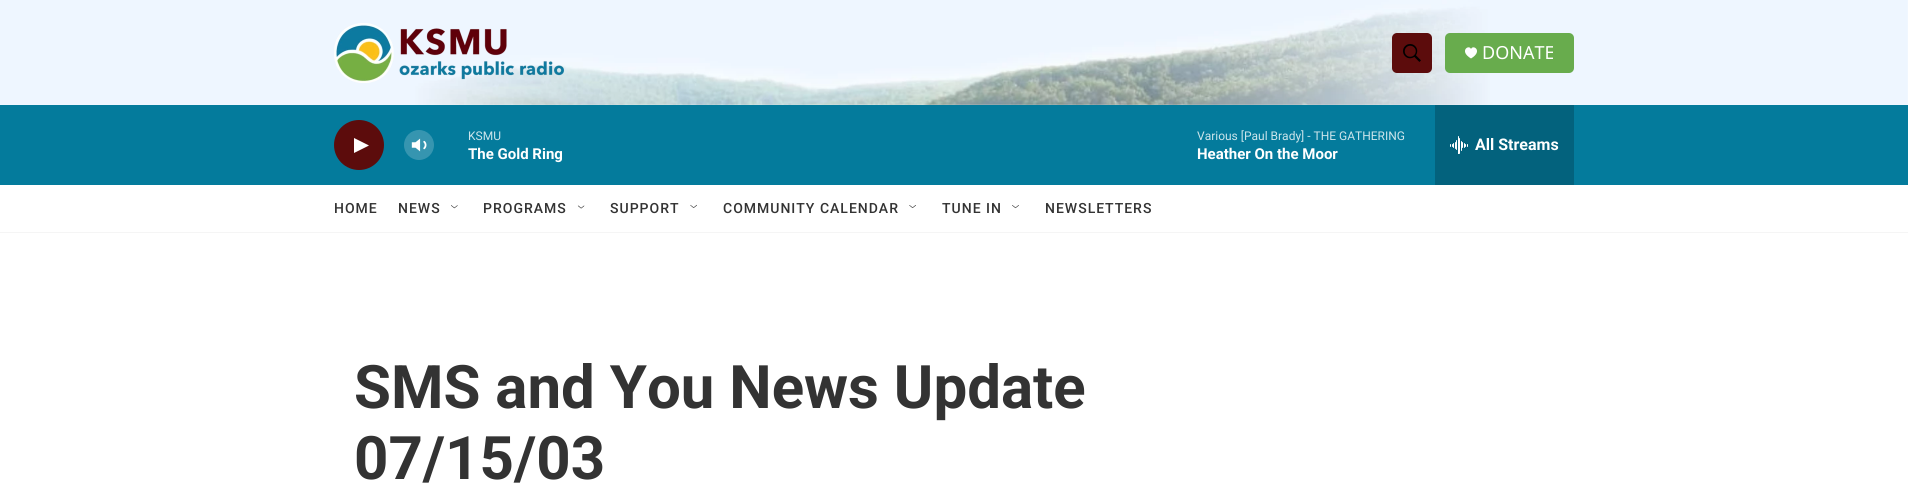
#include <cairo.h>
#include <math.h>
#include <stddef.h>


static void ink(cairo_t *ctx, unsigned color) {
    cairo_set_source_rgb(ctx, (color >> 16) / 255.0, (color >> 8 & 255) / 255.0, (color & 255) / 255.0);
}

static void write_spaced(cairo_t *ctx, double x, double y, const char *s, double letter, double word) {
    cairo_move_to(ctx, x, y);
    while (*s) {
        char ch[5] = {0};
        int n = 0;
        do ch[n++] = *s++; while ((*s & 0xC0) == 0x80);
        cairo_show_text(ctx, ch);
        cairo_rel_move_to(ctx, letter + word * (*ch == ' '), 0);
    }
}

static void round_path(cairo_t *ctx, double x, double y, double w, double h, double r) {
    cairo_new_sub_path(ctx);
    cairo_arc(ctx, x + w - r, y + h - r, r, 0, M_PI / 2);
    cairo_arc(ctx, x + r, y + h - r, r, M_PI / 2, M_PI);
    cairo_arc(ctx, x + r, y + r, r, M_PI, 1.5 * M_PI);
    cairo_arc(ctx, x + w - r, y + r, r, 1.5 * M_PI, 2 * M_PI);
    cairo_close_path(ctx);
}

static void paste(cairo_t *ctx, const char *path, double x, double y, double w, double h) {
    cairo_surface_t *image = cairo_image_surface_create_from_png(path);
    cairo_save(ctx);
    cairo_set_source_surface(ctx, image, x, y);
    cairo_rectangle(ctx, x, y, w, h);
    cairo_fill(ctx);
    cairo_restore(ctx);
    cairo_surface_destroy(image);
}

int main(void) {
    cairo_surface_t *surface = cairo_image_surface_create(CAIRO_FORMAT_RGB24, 1908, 494);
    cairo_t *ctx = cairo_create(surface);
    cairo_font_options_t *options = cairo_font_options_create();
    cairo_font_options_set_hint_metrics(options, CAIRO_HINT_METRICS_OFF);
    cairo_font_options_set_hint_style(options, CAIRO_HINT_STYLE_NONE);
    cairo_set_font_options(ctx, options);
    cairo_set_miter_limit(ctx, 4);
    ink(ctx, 0xFFFFFF);
    cairo_paint(ctx);
    ink(ctx, 0xF5F5F5);
    cairo_rectangle(ctx, 0, 232, 1908, 1);
    cairo_fill(ctx);
    paste(ctx, "media/1.png", 0, 0, 1908, 105);
    paste(ctx, "media/2.png", 334, 23, 230, 60);
    ink(ctx, 0x5C0C0C);
    round_path(ctx, 1392, 33, 40, 40, 5);
    cairo_fill(ctx);
    paste(ctx, "media/3.png", 1403, 44, 18, 18);
    ink(ctx, 0x68AC4D);
    round_path(ctx, 1445, 33, 129, 40, 5);
    cairo_fill(ctx);
    ink(ctx, 0xFFFFFF);
    cairo_new_path(ctx);
    cairo_move_to(ctx, 1471, 49);
    cairo_curve_to(ctx, 1469, 44, 1458.5, 51, 1471, 58.5);
    cairo_curve_to(ctx, 1483.5, 51, 1473, 44, 1471, 49);
    cairo_close_path(ctx);
    cairo_fill(ctx);
    cairo_select_font_face(ctx, "Noto Sans", CAIRO_FONT_SLANT_NORMAL, CAIRO_FONT_WEIGHT_NORMAL);
    cairo_set_font_size(ctx, 18);
    cairo_move_to(ctx, 1482, 59);
    cairo_show_text(ctx, "DONATE");
    ink(ctx, 0x047B9C);
    cairo_rectangle(ctx, 0, 105, 1908, 80);
    cairo_fill(ctx);
    ink(ctx, 0x5C0C0C);
    cairo_arc(ctx, 359, 145, 25, 0, 2 * M_PI);
    cairo_fill(ctx);
    ink(ctx, 0xFFFFFF);
    cairo_new_path(ctx);
    cairo_move_to(ctx, 354, 138);
    cairo_line_to(ctx, 369, 145.5);
    cairo_line_to(ctx, 354, 153);
    cairo_close_path(ctx);
    cairo_fill(ctx);
    paste(ctx, "media/4.png", 411, 138, 16, 14);
    cairo_set_source_rgba(ctx, 1, 1, 1, 0.2);
    cairo_arc(ctx, 419, 145, 15, 0, 2 * M_PI);
    cairo_fill(ctx);
    cairo_select_font_face(ctx, "Roboto", CAIRO_FONT_SLANT_NORMAL, CAIRO_FONT_WEIGHT_NORMAL);
    cairo_set_font_size(ctx, 12);
    ink(ctx, 0xCDE5EB);
    cairo_move_to(ctx, 468, 140);
    cairo_show_text(ctx, "KSMU");
    cairo_select_font_face(ctx, "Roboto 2", CAIRO_FONT_SLANT_NORMAL, CAIRO_FONT_WEIGHT_BOLD);
    cairo_set_font_size(ctx, 15);
    ink(ctx, 0xFFFFFF);
    cairo_move_to(ctx, 468, 159);
    cairo_show_text(ctx, "The Gold Ring");
    cairo_select_font_face(ctx, "Roboto", CAIRO_FONT_SLANT_NORMAL, CAIRO_FONT_WEIGHT_NORMAL);
    cairo_set_font_size(ctx, 12);
    ink(ctx, 0xCDE5EB);
    cairo_move_to(ctx, 1197, 140);
    cairo_show_text(ctx, "Various [Paul Brady] - THE GATHERING");
    cairo_select_font_face(ctx, "Roboto 2", CAIRO_FONT_SLANT_NORMAL, CAIRO_FONT_WEIGHT_BOLD);
    cairo_set_font_size(ctx, 15);
    ink(ctx, 0xFFFFFF);
    cairo_move_to(ctx, 1197, 159);
    cairo_show_text(ctx, "Heather On the Moor");
    ink(ctx, 0x03627D);
    cairo_rectangle(ctx, 1435, 105, 139, 80);
    cairo_fill(ctx);
    paste(ctx, "media/5.png", 1450, 136, 18, 18);
    cairo_set_font_size(ctx, 16);
    ink(ctx, 0xFFFFFF);
    cairo_move_to(ctx, 1475, 150);
    cairo_show_text(ctx, "All Streams");
    cairo_select_font_face(ctx, "Roboto Medium", CAIRO_FONT_SLANT_NORMAL, CAIRO_FONT_WEIGHT_NORMAL);
    cairo_set_font_size(ctx, 14);
    ink(ctx, 0x333333);
    write_spaced(ctx, 334, 213, "HOME", 1, 0);
    write_spaced(ctx, 398, 213, "NEWS", 1, 0);
    paste(ctx, "media/6.png", 451, 205, 7, 4);
    write_spaced(ctx, 483, 213, "PROGRAMS", 1, 0);
    paste(ctx, "media/7.png", 577, 205, 8, 4);
    write_spaced(ctx, 610, 213, "SUPPORT", 1, 0);
    paste(ctx, "media/8.png", 690, 204, 7, 4);
    write_spaced(ctx, 723, 213, "COMMUNITY CALENDAR", 1, 0);
    paste(ctx, "media/9.png", 909, 205, 7, 3);
    write_spaced(ctx, 942, 213, "TUNE IN", 1, 0);
    paste(ctx, "media/10.png", 1012, 205, 7, 4);
    write_spaced(ctx, 1045, 213, "NEWSLETTERS", 1, 0);
    cairo_select_font_face(ctx, "Roboto", CAIRO_FONT_SLANT_NORMAL, CAIRO_FONT_WEIGHT_BOLD);
    cairo_set_font_size(ctx, 60);
    cairo_move_to(ctx, 354, 408);
    cairo_show_text(ctx, "SMS and You News Update");
    cairo_move_to(ctx, 354, 479);
    cairo_show_text(ctx, "07/15/03");
    cairo_surface_write_to_png(surface, "image.png");
    cairo_font_options_destroy(options);
    cairo_destroy(ctx);
    cairo_surface_destroy(surface);
    return 0;
}
